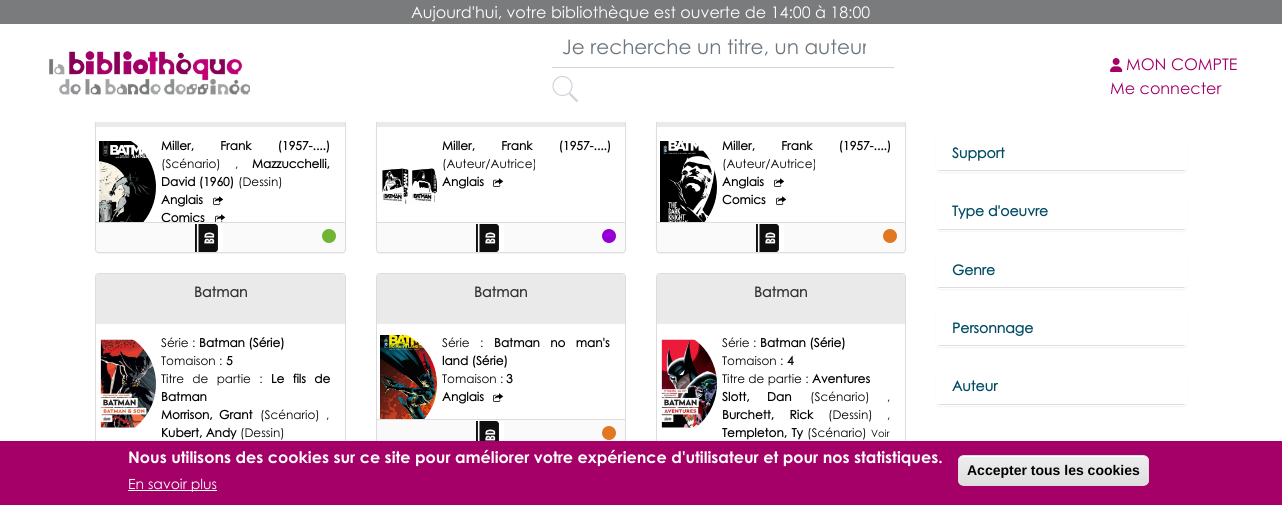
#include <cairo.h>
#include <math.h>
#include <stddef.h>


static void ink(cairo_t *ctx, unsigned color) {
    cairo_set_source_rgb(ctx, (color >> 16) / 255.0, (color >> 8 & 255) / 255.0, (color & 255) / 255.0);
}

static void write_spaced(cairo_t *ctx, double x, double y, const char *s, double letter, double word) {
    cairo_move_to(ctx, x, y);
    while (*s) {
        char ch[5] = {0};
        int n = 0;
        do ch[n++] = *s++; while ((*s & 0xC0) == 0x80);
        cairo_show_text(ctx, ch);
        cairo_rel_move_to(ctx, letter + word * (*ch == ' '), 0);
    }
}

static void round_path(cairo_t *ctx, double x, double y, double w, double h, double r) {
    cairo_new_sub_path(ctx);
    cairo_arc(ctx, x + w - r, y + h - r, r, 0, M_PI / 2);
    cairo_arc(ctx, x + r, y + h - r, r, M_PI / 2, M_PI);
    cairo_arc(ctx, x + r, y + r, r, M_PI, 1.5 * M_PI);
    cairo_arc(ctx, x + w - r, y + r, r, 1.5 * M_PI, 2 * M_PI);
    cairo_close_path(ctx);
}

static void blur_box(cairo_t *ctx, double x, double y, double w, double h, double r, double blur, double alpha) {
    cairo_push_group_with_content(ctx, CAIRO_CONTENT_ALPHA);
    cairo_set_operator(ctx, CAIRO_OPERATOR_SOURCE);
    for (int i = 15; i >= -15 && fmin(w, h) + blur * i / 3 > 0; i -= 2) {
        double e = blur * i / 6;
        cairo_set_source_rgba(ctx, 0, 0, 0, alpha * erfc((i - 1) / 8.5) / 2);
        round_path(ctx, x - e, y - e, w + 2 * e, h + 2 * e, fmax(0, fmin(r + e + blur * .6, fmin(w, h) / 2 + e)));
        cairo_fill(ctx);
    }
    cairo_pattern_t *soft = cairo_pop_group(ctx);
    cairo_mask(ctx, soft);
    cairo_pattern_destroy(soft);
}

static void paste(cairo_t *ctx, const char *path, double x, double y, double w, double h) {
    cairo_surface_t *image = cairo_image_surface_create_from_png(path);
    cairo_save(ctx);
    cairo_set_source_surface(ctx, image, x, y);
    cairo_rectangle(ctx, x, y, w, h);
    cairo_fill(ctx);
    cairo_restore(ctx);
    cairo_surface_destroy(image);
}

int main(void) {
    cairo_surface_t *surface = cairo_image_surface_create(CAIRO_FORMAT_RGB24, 1282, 505);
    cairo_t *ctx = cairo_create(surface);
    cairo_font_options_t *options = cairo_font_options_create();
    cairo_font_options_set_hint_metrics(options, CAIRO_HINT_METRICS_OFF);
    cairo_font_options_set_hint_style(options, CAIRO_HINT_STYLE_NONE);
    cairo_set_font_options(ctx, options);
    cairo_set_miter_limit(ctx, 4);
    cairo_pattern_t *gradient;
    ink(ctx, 0xFFFFFF);
    cairo_paint(ctx);
    ink(ctx, 0x000000);
    blur_box(ctx, 95, 77, 251, 177, 4, 0.5, 0.05);
    round_path(ctx, 95.5, 76.5, 250, 176, 3.5);
    ink(ctx, 0xDDDDDD);
    cairo_set_line_width(ctx, 1);
    cairo_stroke(ctx);
    ink(ctx, 0x000000);
    blur_box(ctx, 376, 77, 250, 177, 4, 0.5, 0.05);
    round_path(ctx, 376.5, 76.5, 249, 176, 3.5);
    ink(ctx, 0xDDDDDD);
    cairo_stroke(ctx);
    ink(ctx, 0x000000);
    blur_box(ctx, 656, 77, 250, 177, 4, 0.5, 0.05);
    round_path(ctx, 656.5, 76.5, 249, 176, 3.5);
    ink(ctx, 0xDDDDDD);
    cairo_stroke(ctx);
    ink(ctx, 0xFFFFFF);
    cairo_rectangle(ctx, 95, 76, 811, 46);
    cairo_fill(ctx);
    ink(ctx, 0x7A7B7D);
    cairo_rectangle(ctx, 0, 0, 1282, 24);
    cairo_fill(ctx);
    cairo_select_font_face(ctx, "Century Gothic", CAIRO_FONT_SLANT_NORMAL, CAIRO_FONT_WEIGHT_NORMAL);
    cairo_set_font_size(ctx, 16);
    ink(ctx, 0xFFFFFF);
    cairo_move_to(ctx, 411, 18);
    cairo_show_text(ctx, "Aujourd'hui, votre bibliothèque est ouverte de 14:00 à 18:00");
    ink(ctx, 0xCED4DA);
    cairo_rectangle(ctx, 552, 67, 342, 1);
    cairo_fill(ctx);
    cairo_save(ctx);
    cairo_rectangle(ctx, 562, 34, 304, 24);
    cairo_clip(ctx);
    cairo_set_font_size(ctx, 20);
    ink(ctx, 0x6C757D);
    cairo_move_to(ctx, 562, 54);
    cairo_show_text(ctx, "Je recherche un titre, un auteur");
    cairo_restore(ctx);
    cairo_new_path(ctx);
    cairo_arc(ctx, 562.5, 86, 9.5, 0, 2 * M_PI);
    cairo_set_line_width(ctx, 1.2);
    cairo_stroke(ctx);
    cairo_new_path(ctx);
    cairo_move_to(ctx, 569.5, 93.5);
    cairo_line_to(ctx, 577.5, 101.5);
    cairo_set_line_width(ctx, 2.4);
    cairo_stroke(ctx);
    paste(ctx, "media/1.png", 49, 50, 201, 45);
    paste(ctx, "media/2.png", 1110, 58, 13, 14);
    ink(ctx, 0xA40067);
    cairo_move_to(ctx, 1126, 70);
    cairo_show_text(ctx, "MON COMPTE");
    cairo_move_to(ctx, 1110, 94);
    cairo_show_text(ctx, "Me connecter");
    ink(ctx, 0xEAEAEA);
    cairo_rectangle(ctx, 96, 122, 249, 5);
    cairo_fill(ctx);
    cairo_save(ctx);
    round_path(ctx, 96, 77, 249, 175, 3);
    cairo_clip(ctx);
    ink(ctx, 0xFFFFFF);
    cairo_new_path(ctx);
    cairo_move_to(ctx, 96, 127);
    cairo_line_to(ctx, 345, 127);
    cairo_line_to(ctx, 345, 248);
    cairo_curve_to(ctx, 345, 250, 343, 252, 341, 252);
    cairo_line_to(ctx, 100, 252);
    cairo_curve_to(ctx, 98, 252, 96, 250, 96, 248);
    cairo_close_path(ctx);
    cairo_fill(ctx);
    cairo_restore(ctx);
    paste(ctx, "media/3.png", 99, 141, 57, 81);
    cairo_select_font_face(ctx, "Century Gothic", CAIRO_FONT_SLANT_NORMAL, CAIRO_FONT_WEIGHT_BOLD);
    cairo_set_font_size(ctx, 12);
    ink(ctx, 0x000000);
    write_spaced(ctx, 161, 150, "Miller, Frank (1957-....)", 0, 23);
    cairo_select_font_face(ctx, "Century Gothic", CAIRO_FONT_SLANT_NORMAL, CAIRO_FONT_WEIGHT_NORMAL);
    cairo_move_to(ctx, 161, 168);
    cairo_show_text(ctx, "(Scénario)");
    cairo_move_to(ctx, 235, 168);
    cairo_show_text(ctx, ",");
    cairo_select_font_face(ctx, "Century Gothic", CAIRO_FONT_SLANT_NORMAL, CAIRO_FONT_WEIGHT_BOLD);
    cairo_move_to(ctx, 252, 168);
    cairo_show_text(ctx, "Mazzucchelli,");
    cairo_move_to(ctx, 161, 186);
    cairo_show_text(ctx, "David (1960)");
    cairo_select_font_face(ctx, "Century Gothic", CAIRO_FONT_SLANT_NORMAL, CAIRO_FONT_WEIGHT_NORMAL);
    cairo_move_to(ctx, 238, 186);
    cairo_show_text(ctx, "(Dessin)");
    cairo_select_font_face(ctx, "Century Gothic", CAIRO_FONT_SLANT_NORMAL, CAIRO_FONT_WEIGHT_BOLD);
    cairo_move_to(ctx, 161, 204);
    cairo_show_text(ctx, "Anglais");
    paste(ctx, "media/4.png", 213, 196, 11, 9);
    cairo_move_to(ctx, 161, 222);
    cairo_show_text(ctx, "Comics");
    paste(ctx, "media/5.png", 215, 214, 11, 8);
    ink(ctx, 0xFAFAFA);
    cairo_new_path(ctx);
    cairo_move_to(ctx, 96, 222);
    cairo_line_to(ctx, 345, 222);
    cairo_line_to(ctx, 345, 249);
    cairo_curve_to(ctx, 345, 250.5, 343.5, 252, 342, 252);
    cairo_line_to(ctx, 99, 252);
    cairo_curve_to(ctx, 97.5, 252, 96, 250.5, 96, 249);
    cairo_close_path(ctx);
    cairo_fill(ctx);
    ink(ctx, 0xDDDDDD);
    cairo_rectangle(ctx, 96, 222, 249, 1);
    cairo_fill(ctx);
    paste(ctx, "media/6.png", 195, 224, 28, 28);
    paste(ctx, "media/7.png", 322, 229, 14, 14);
    ink(ctx, 0xEAEAEA);
    cairo_rectangle(ctx, 377, 122, 248, 5);
    cairo_fill(ctx);
    cairo_save(ctx);
    round_path(ctx, 377, 77, 248, 175, 3);
    cairo_clip(ctx);
    ink(ctx, 0xFFFFFF);
    cairo_new_path(ctx);
    cairo_move_to(ctx, 377, 127);
    cairo_line_to(ctx, 625, 127);
    cairo_line_to(ctx, 625, 248);
    cairo_curve_to(ctx, 625, 250, 623, 252, 621, 252);
    cairo_line_to(ctx, 381, 252);
    cairo_curve_to(ctx, 379, 252, 377, 250, 377, 248);
    cairo_close_path(ctx);
    cairo_fill(ctx);
    cairo_restore(ctx);
    paste(ctx, "media/8.png", 382, 168, 55, 37);
    ink(ctx, 0x000000);
    write_spaced(ctx, 442, 150, "Miller, Frank (1957-....)", 0, 23);
    cairo_select_font_face(ctx, "Century Gothic", CAIRO_FONT_SLANT_NORMAL, CAIRO_FONT_WEIGHT_NORMAL);
    cairo_move_to(ctx, 442, 168);
    cairo_show_text(ctx, "(Auteur/Autrice)");
    cairo_select_font_face(ctx, "Century Gothic", CAIRO_FONT_SLANT_NORMAL, CAIRO_FONT_WEIGHT_BOLD);
    cairo_move_to(ctx, 442, 186);
    cairo_show_text(ctx, "Anglais");
    paste(ctx, "media/4.png", 493, 178, 11, 9);
    ink(ctx, 0xFAFAFA);
    cairo_new_path(ctx);
    cairo_move_to(ctx, 377, 222);
    cairo_line_to(ctx, 625, 222);
    cairo_line_to(ctx, 625, 249);
    cairo_curve_to(ctx, 625, 250.5, 623.5, 252, 622, 252);
    cairo_line_to(ctx, 380, 252);
    cairo_curve_to(ctx, 378.5, 252, 377, 250.5, 377, 249);
    cairo_close_path(ctx);
    cairo_fill(ctx);
    ink(ctx, 0xDDDDDD);
    cairo_rectangle(ctx, 377, 222, 248, 1);
    cairo_fill(ctx);
    paste(ctx, "media/6.png", 476, 224, 28, 28);
    paste(ctx, "media/9.png", 602, 229, 14, 14);
    ink(ctx, 0xEAEAEA);
    cairo_rectangle(ctx, 657, 122, 248, 5);
    cairo_fill(ctx);
    cairo_save(ctx);
    round_path(ctx, 657, 77, 248, 175, 3);
    cairo_clip(ctx);
    ink(ctx, 0xFFFFFF);
    cairo_new_path(ctx);
    cairo_move_to(ctx, 657, 127);
    cairo_line_to(ctx, 905, 127);
    cairo_line_to(ctx, 905, 248);
    cairo_curve_to(ctx, 905, 250, 903, 252, 901, 252);
    cairo_line_to(ctx, 661, 252);
    cairo_curve_to(ctx, 659, 252, 657, 250, 657, 248);
    cairo_close_path(ctx);
    cairo_fill(ctx);
    cairo_restore(ctx);
    paste(ctx, "media/10.png", 660, 141, 57, 81);
    ink(ctx, 0x000000);
    write_spaced(ctx, 722, 150, "Miller, Frank (1957-....)", 0, 23);
    cairo_select_font_face(ctx, "Century Gothic", CAIRO_FONT_SLANT_NORMAL, CAIRO_FONT_WEIGHT_NORMAL);
    cairo_move_to(ctx, 722, 168);
    cairo_show_text(ctx, "(Auteur/Autrice)");
    cairo_select_font_face(ctx, "Century Gothic", CAIRO_FONT_SLANT_NORMAL, CAIRO_FONT_WEIGHT_BOLD);
    cairo_move_to(ctx, 722, 186);
    cairo_show_text(ctx, "Anglais");
    paste(ctx, "media/4.png", 774, 178, 11, 9);
    cairo_move_to(ctx, 722, 204);
    cairo_show_text(ctx, "Comics");
    paste(ctx, "media/4.png", 776, 196, 11, 9);
    ink(ctx, 0xFAFAFA);
    cairo_new_path(ctx);
    cairo_move_to(ctx, 657, 222);
    cairo_line_to(ctx, 905, 222);
    cairo_line_to(ctx, 905, 249);
    cairo_curve_to(ctx, 905, 250.5, 903.5, 252, 902, 252);
    cairo_line_to(ctx, 660, 252);
    cairo_curve_to(ctx, 658.5, 252, 657, 250.5, 657, 249);
    cairo_close_path(ctx);
    cairo_fill(ctx);
    ink(ctx, 0xDDDDDD);
    cairo_rectangle(ctx, 657, 222, 248, 1);
    cairo_fill(ctx);
    paste(ctx, "media/11.png", 756, 224, 28, 28);
    paste(ctx, "media/12.png", 883, 229, 14, 14);
    round_path(ctx, 95.5, 273.5, 250, 200, 3.5);
    cairo_set_line_width(ctx, 1);
    cairo_stroke(ctx);
    ink(ctx, 0xEAEAEA);
    cairo_new_path(ctx);
    cairo_move_to(ctx, 99, 274);
    cairo_line_to(ctx, 342, 274);
    cairo_curve_to(ctx, 343.5, 274, 345, 275.5, 345, 277);
    cairo_line_to(ctx, 345, 324);
    cairo_line_to(ctx, 96, 324);
    cairo_line_to(ctx, 96, 277);
    cairo_curve_to(ctx, 96, 275.5, 97.5, 274, 99, 274);
    cairo_close_path(ctx);
    cairo_fill(ctx);
    cairo_set_font_size(ctx, 14);
    ink(ctx, 0x333333);
    cairo_move_to(ctx, 194, 297);
    cairo_show_text(ctx, "Batman");
    paste(ctx, "media/13.png", 100, 339, 56, 89);
    cairo_select_font_face(ctx, "Century Gothic", CAIRO_FONT_SLANT_NORMAL, CAIRO_FONT_WEIGHT_NORMAL);
    cairo_set_font_size(ctx, 12);
    ink(ctx, 0x000000);
    cairo_move_to(ctx, 161, 347);
    cairo_show_text(ctx, "Série :");
    cairo_select_font_face(ctx, "Century Gothic", CAIRO_FONT_SLANT_NORMAL, CAIRO_FONT_WEIGHT_BOLD);
    cairo_move_to(ctx, 199, 347);
    cairo_show_text(ctx, "Batman (Série)");
    cairo_select_font_face(ctx, "Century Gothic", CAIRO_FONT_SLANT_NORMAL, CAIRO_FONT_WEIGHT_NORMAL);
    cairo_move_to(ctx, 161, 365);
    cairo_show_text(ctx, "Tomaison :");
    cairo_select_font_face(ctx, "Century Gothic", CAIRO_FONT_SLANT_NORMAL, CAIRO_FONT_WEIGHT_BOLD);
    cairo_move_to(ctx, 226, 365);
    cairo_show_text(ctx, "5");
    cairo_select_font_face(ctx, "Century Gothic", CAIRO_FONT_SLANT_NORMAL, CAIRO_FONT_WEIGHT_NORMAL);
    write_spaced(ctx, 161, 383, "Titre de partie :", 0, 5);
    cairo_select_font_face(ctx, "Century Gothic", CAIRO_FONT_SLANT_NORMAL, CAIRO_FONT_WEIGHT_BOLD);
    write_spaced(ctx, 271, 383, "Le fils de", 0, 5);
    cairo_move_to(ctx, 161, 401);
    cairo_show_text(ctx, "Batman");
    write_spaced(ctx, 161, 419, "Morrison, Grant", 0, 3);
    cairo_select_font_face(ctx, "Century Gothic", CAIRO_FONT_SLANT_NORMAL, CAIRO_FONT_WEIGHT_NORMAL);
    cairo_move_to(ctx, 260, 419);
    cairo_show_text(ctx, "(Scénario)");
    cairo_move_to(ctx, 326, 419);
    cairo_show_text(ctx, ",");
    cairo_select_font_face(ctx, "Century Gothic", CAIRO_FONT_SLANT_NORMAL, CAIRO_FONT_WEIGHT_BOLD);
    cairo_move_to(ctx, 161, 437);
    cairo_show_text(ctx, "Kubert, Andy");
    cairo_select_font_face(ctx, "Century Gothic", CAIRO_FONT_SLANT_NORMAL, CAIRO_FONT_WEIGHT_NORMAL);
    cairo_move_to(ctx, 240, 437);
    cairo_show_text(ctx, "(Dessin)");
    round_path(ctx, 376.5, 273.5, 249, 176, 3.5);
    ink(ctx, 0xDDDDDD);
    cairo_stroke(ctx);
    ink(ctx, 0xEAEAEA);
    cairo_new_path(ctx);
    cairo_move_to(ctx, 380, 274);
    cairo_line_to(ctx, 622, 274);
    cairo_curve_to(ctx, 623.5, 274, 625, 275.5, 625, 277);
    cairo_line_to(ctx, 625, 324);
    cairo_line_to(ctx, 377, 324);
    cairo_line_to(ctx, 377, 277);
    cairo_curve_to(ctx, 377, 275.5, 378.5, 274, 380, 274);
    cairo_close_path(ctx);
    cairo_fill(ctx);
    cairo_select_font_face(ctx, "Century Gothic", CAIRO_FONT_SLANT_NORMAL, CAIRO_FONT_WEIGHT_BOLD);
    cairo_set_font_size(ctx, 14);
    ink(ctx, 0x333333);
    cairo_move_to(ctx, 474, 297);
    cairo_show_text(ctx, "Batman");
    paste(ctx, "media/14.png", 380, 335, 57, 84);
    cairo_select_font_face(ctx, "Century Gothic", CAIRO_FONT_SLANT_NORMAL, CAIRO_FONT_WEIGHT_NORMAL);
    cairo_set_font_size(ctx, 12);
    ink(ctx, 0x000000);
    cairo_move_to(ctx, 442, 347);
    cairo_show_text(ctx, "Série");
    cairo_move_to(ctx, 480, 347);
    cairo_show_text(ctx, ":");
    cairo_select_font_face(ctx, "Century Gothic", CAIRO_FONT_SLANT_NORMAL, CAIRO_FONT_WEIGHT_BOLD);
    write_spaced(ctx, 494, 347, "Batman no man's", 0, 7);
    cairo_move_to(ctx, 442, 365);
    cairo_show_text(ctx, "land (Série)");
    cairo_select_font_face(ctx, "Century Gothic", CAIRO_FONT_SLANT_NORMAL, CAIRO_FONT_WEIGHT_NORMAL);
    cairo_move_to(ctx, 442, 383);
    cairo_show_text(ctx, "Tomaison :");
    cairo_select_font_face(ctx, "Century Gothic", CAIRO_FONT_SLANT_NORMAL, CAIRO_FONT_WEIGHT_BOLD);
    cairo_move_to(ctx, 506, 383);
    cairo_show_text(ctx, "3");
    cairo_move_to(ctx, 442, 401);
    cairo_show_text(ctx, "Anglais");
    paste(ctx, "media/4.png", 493, 393, 11, 9);
    ink(ctx, 0xFAFAFA);
    cairo_rectangle(ctx, 377, 420, 248, 21);
    cairo_fill(ctx);
    ink(ctx, 0xDDDDDD);
    cairo_rectangle(ctx, 377, 419, 248, 1);
    cairo_fill(ctx);
    paste(ctx, "media/15.png", 476, 421, 28, 20);
    paste(ctx, "media/12.png", 602, 426, 14, 14);
    round_path(ctx, 656.5, 273.5, 249, 218, 3.5);
    cairo_stroke(ctx);
    ink(ctx, 0xEAEAEA);
    cairo_new_path(ctx);
    cairo_move_to(ctx, 660, 274);
    cairo_line_to(ctx, 902, 274);
    cairo_curve_to(ctx, 903.5, 274, 905, 275.5, 905, 277);
    cairo_line_to(ctx, 905, 324);
    cairo_line_to(ctx, 657, 324);
    cairo_line_to(ctx, 657, 277);
    cairo_curve_to(ctx, 657, 275.5, 658.5, 274, 660, 274);
    cairo_close_path(ctx);
    cairo_fill(ctx);
    cairo_set_font_size(ctx, 14);
    ink(ctx, 0x333333);
    cairo_move_to(ctx, 754, 297);
    cairo_show_text(ctx, "Batman");
    paste(ctx, "media/16.png", 661, 339, 56, 89);
    cairo_select_font_face(ctx, "Century Gothic", CAIRO_FONT_SLANT_NORMAL, CAIRO_FONT_WEIGHT_NORMAL);
    cairo_set_font_size(ctx, 12);
    ink(ctx, 0x000000);
    cairo_move_to(ctx, 722, 347);
    cairo_show_text(ctx, "Série :");
    cairo_select_font_face(ctx, "Century Gothic", CAIRO_FONT_SLANT_NORMAL, CAIRO_FONT_WEIGHT_BOLD);
    cairo_move_to(ctx, 760, 347);
    cairo_show_text(ctx, "Batman (Série)");
    cairo_select_font_face(ctx, "Century Gothic", CAIRO_FONT_SLANT_NORMAL, CAIRO_FONT_WEIGHT_NORMAL);
    cairo_move_to(ctx, 722, 365);
    cairo_show_text(ctx, "Tomaison :");
    cairo_select_font_face(ctx, "Century Gothic", CAIRO_FONT_SLANT_NORMAL, CAIRO_FONT_WEIGHT_BOLD);
    cairo_move_to(ctx, 787, 365);
    cairo_show_text(ctx, "4");
    cairo_select_font_face(ctx, "Century Gothic", CAIRO_FONT_SLANT_NORMAL, CAIRO_FONT_WEIGHT_NORMAL);
    cairo_move_to(ctx, 722, 383);
    cairo_show_text(ctx, "Titre de partie :");
    cairo_select_font_face(ctx, "Century Gothic", CAIRO_FONT_SLANT_NORMAL, CAIRO_FONT_WEIGHT_BOLD);
    cairo_move_to(ctx, 812, 383);
    cairo_show_text(ctx, "Aventures");
    write_spaced(ctx, 722, 401, "Slott, Dan", 0, 14);
    cairo_select_font_face(ctx, "Century Gothic", CAIRO_FONT_SLANT_NORMAL, CAIRO_FONT_WEIGHT_NORMAL);
    cairo_move_to(ctx, 810, 401);
    cairo_show_text(ctx, "(Scénario)");
    cairo_move_to(ctx, 887, 401);
    cairo_show_text(ctx, ",");
    cairo_select_font_face(ctx, "Century Gothic", CAIRO_FONT_SLANT_NORMAL, CAIRO_FONT_WEIGHT_BOLD);
    write_spaced(ctx, 722, 419, "Burchett, Rick", 0, 12);
    cairo_select_font_face(ctx, "Century Gothic", CAIRO_FONT_SLANT_NORMAL, CAIRO_FONT_WEIGHT_NORMAL);
    cairo_move_to(ctx, 828, 419);
    cairo_show_text(ctx, "(Dessin)");
    cairo_move_to(ctx, 887, 419);
    cairo_show_text(ctx, ",");
    cairo_select_font_face(ctx, "Century Gothic", CAIRO_FONT_SLANT_NORMAL, CAIRO_FONT_WEIGHT_BOLD);
    write_spaced(ctx, 722, 437, "Templeton, Ty", 0, 1);
    cairo_select_font_face(ctx, "Century Gothic", CAIRO_FONT_SLANT_NORMAL, CAIRO_FONT_WEIGHT_NORMAL);
    cairo_move_to(ctx, 807, 437);
    cairo_show_text(ctx, "(Scénario)");
    cairo_set_font_size(ctx, 10);
    cairo_move_to(ctx, 871, 437);
    cairo_show_text(ctx, "Voir");
    ink(ctx, 0x000000);
    blur_box(ctx, 936, 135, 251, 38, 4, 0.5, 0.05);
    ink(ctx, 0xFFFFFF);
    round_path(ctx, 936, 134, 251, 38, 4);
    cairo_fill(ctx);
    cairo_save(ctx);
    round_path(ctx, 937, 135, 249, 36, 3);
    cairo_clip(ctx);
    ink(ctx, 0xDDDDDD);
    cairo_rectangle(ctx, 937, 170, 249, 1);
    cairo_fill(ctx);
    cairo_restore(ctx);
    cairo_select_font_face(ctx, "Century Gothic", CAIRO_FONT_SLANT_NORMAL, CAIRO_FONT_WEIGHT_BOLD);
    cairo_set_font_size(ctx, 14);
    ink(ctx, 0x004B63);
    cairo_move_to(ctx, 952, 158);
    cairo_show_text(ctx, "Support");
    ink(ctx, 0x000000);
    blur_box(ctx, 936, 193, 251, 39, 4, 0.5, 0.05);
    ink(ctx, 0xFFFFFF);
    round_path(ctx, 936, 192, 251, 39, 4);
    cairo_fill(ctx);
    cairo_save(ctx);
    round_path(ctx, 937, 193, 249, 37, 3);
    cairo_clip(ctx);
    ink(ctx, 0xDDDDDD);
    cairo_rectangle(ctx, 937, 229, 249, 1);
    cairo_fill(ctx);
    cairo_restore(ctx);
    ink(ctx, 0x004B63);
    cairo_move_to(ctx, 952, 216);
    cairo_show_text(ctx, "Type d'oeuvre");
    ink(ctx, 0x000000);
    blur_box(ctx, 936, 252, 251, 38, 4, 0.5, 0.05);
    ink(ctx, 0xFFFFFF);
    round_path(ctx, 936, 251, 251, 38, 4);
    cairo_fill(ctx);
    cairo_save(ctx);
    round_path(ctx, 937, 252, 249, 36, 3);
    cairo_clip(ctx);
    ink(ctx, 0xDDDDDD);
    cairo_rectangle(ctx, 937, 287, 249, 1);
    cairo_fill(ctx);
    cairo_restore(ctx);
    ink(ctx, 0x004B63);
    cairo_move_to(ctx, 952, 275);
    cairo_show_text(ctx, "Genre");
    ink(ctx, 0x000000);
    blur_box(ctx, 936, 310, 251, 38, 4, 0.5, 0.05);
    ink(ctx, 0xFFFFFF);
    round_path(ctx, 936, 309, 251, 38, 4);
    cairo_fill(ctx);
    cairo_save(ctx);
    round_path(ctx, 937, 310, 249, 36, 3);
    cairo_clip(ctx);
    ink(ctx, 0xDDDDDD);
    cairo_rectangle(ctx, 937, 345, 249, 1);
    cairo_fill(ctx);
    cairo_restore(ctx);
    ink(ctx, 0x004B63);
    cairo_move_to(ctx, 952, 333);
    cairo_show_text(ctx, "Personnage");
    ink(ctx, 0x000000);
    blur_box(ctx, 936, 368, 251, 39, 4, 0.5, 0.05);
    ink(ctx, 0xFFFFFF);
    round_path(ctx, 936, 367, 251, 39, 4);
    cairo_fill(ctx);
    cairo_save(ctx);
    round_path(ctx, 937, 368, 249, 37, 3);
    cairo_clip(ctx);
    ink(ctx, 0xDDDDDD);
    cairo_rectangle(ctx, 937, 404, 249, 1);
    cairo_fill(ctx);
    cairo_restore(ctx);
    ink(ctx, 0x004B63);
    cairo_move_to(ctx, 952, 391);
    cairo_show_text(ctx, "Auteur");
    ink(ctx, 0xA40067);
    cairo_rectangle(ctx, 0, 441, 1282, 64);
    cairo_fill(ctx);
    cairo_select_font_face(ctx, "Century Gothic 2", CAIRO_FONT_SLANT_NORMAL, CAIRO_FONT_WEIGHT_BOLD);
    cairo_set_font_size(ctx, 16);
    ink(ctx, 0xFFFFFF);
    cairo_move_to(ctx, 128, 463);
    cairo_show_text(ctx, "Nous utilisons des cookies sur ce site pour améliorer votre expérience d'utilisateur et pour nos statistiques.");
    cairo_rectangle(ctx, 128, 490, 89, 1);
    cairo_fill(ctx);
    cairo_select_font_face(ctx, "Century Gothic", CAIRO_FONT_SLANT_NORMAL, CAIRO_FONT_WEIGHT_NORMAL);
    cairo_set_font_size(ctx, 14);
    cairo_move_to(ctx, 128, 489);
    cairo_show_text(ctx, "En savoir plus");
    cairo_save(ctx);
    round_path(ctx, 958, 455, 191, 31, 6);
    cairo_clip(ctx);
    gradient = cairo_pattern_create_linear(1054, 456, 1054, 485);
    cairo_pattern_add_color_stop_rgba(gradient, 0.05, 0.929, 0.929, 0.929, 1);
    cairo_pattern_add_color_stop_rgba(gradient, 1, 0.875, 0.875, 0.875, 1);
    cairo_set_source(ctx, gradient);
    cairo_pattern_destroy(gradient);
    cairo_rectangle(ctx, 958, 456, 191, 29);
    cairo_fill(ctx);
    cairo_restore(ctx);
    cairo_new_path(ctx);
    cairo_move_to(ctx, 964, 457);
    cairo_line_to(ctx, 1143, 457);
    cairo_curve_to(ctx, 1146, 457, 1148, 459, 1148, 462);
    cairo_curve_to(ctx, 1148, 459, 1147, 457, 1144, 456);
    cairo_line_to(ctx, 963, 456);
    cairo_curve_to(ctx, 960, 457, 959, 459, 959, 462);
    cairo_curve_to(ctx, 959, 459, 961, 457, 964, 457);
    cairo_close_path(ctx);
    cairo_fill(ctx);
    round_path(ctx, 958.5, 455.5, 190, 30, 5.5);
    ink(ctx, 0xDCDCDC);
    cairo_stroke(ctx);
    cairo_select_font_face(ctx, "Liberation Sans", CAIRO_FONT_SLANT_NORMAL, CAIRO_FONT_WEIGHT_BOLD);
    ink(ctx, 0x000000);
    cairo_move_to(ctx, 967, 475);
    cairo_show_text(ctx, "Accepter tous les cookies");
    cairo_surface_write_to_png(surface, "image.png");
    cairo_font_options_destroy(options);
    cairo_destroy(ctx);
    cairo_surface_destroy(surface);
    return 0;
}
